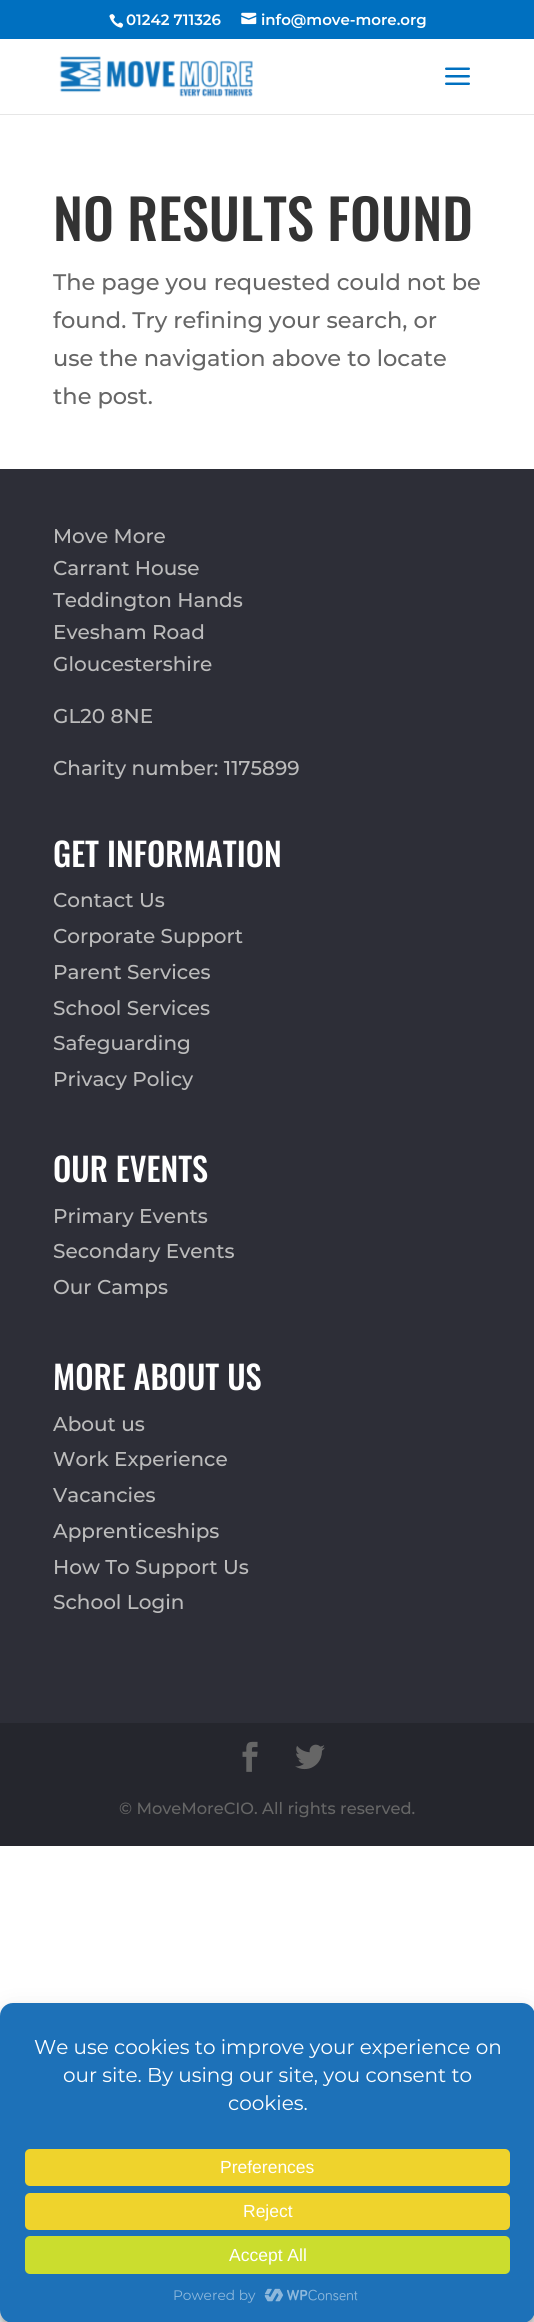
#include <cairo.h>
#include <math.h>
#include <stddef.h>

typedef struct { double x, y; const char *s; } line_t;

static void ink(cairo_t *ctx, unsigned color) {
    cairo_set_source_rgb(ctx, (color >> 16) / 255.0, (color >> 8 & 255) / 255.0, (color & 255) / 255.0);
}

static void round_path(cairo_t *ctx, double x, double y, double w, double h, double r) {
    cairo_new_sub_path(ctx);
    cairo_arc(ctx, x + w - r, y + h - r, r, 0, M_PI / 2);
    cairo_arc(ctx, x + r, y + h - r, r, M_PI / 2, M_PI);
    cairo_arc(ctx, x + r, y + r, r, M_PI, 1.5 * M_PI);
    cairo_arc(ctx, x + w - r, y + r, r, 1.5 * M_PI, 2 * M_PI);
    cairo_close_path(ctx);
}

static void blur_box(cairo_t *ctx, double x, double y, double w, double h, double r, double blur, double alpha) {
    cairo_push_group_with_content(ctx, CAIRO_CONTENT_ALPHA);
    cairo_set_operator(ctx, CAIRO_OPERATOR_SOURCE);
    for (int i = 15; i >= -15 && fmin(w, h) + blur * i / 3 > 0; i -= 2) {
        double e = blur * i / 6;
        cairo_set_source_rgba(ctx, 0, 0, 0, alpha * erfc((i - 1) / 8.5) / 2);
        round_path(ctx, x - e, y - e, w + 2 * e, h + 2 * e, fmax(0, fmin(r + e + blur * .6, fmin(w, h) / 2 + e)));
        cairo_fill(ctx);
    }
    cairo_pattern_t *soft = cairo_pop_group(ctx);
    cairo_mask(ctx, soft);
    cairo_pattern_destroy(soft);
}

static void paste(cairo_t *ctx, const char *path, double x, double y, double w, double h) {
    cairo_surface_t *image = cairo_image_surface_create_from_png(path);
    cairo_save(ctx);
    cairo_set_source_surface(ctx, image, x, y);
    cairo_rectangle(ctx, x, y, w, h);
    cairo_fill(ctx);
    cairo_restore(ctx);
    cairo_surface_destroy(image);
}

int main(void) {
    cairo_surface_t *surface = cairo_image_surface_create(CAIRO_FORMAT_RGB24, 534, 2322);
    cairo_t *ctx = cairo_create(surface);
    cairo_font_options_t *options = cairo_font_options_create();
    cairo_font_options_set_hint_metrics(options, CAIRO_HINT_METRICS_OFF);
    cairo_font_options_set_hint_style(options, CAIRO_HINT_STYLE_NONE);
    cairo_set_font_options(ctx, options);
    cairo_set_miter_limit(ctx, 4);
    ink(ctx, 0xFFFFFF);
    cairo_paint(ctx);
    ink(ctx, 0x0070C0);
    cairo_rectangle(ctx, 0, 0, 534, 39);
    cairo_fill(ctx);
    paste(ctx, "media/1.png", 109, 14, 15, 14);
    cairo_select_font_face(ctx, "Montserrat SemiBold", CAIRO_FONT_SLANT_NORMAL, CAIRO_FONT_WEIGHT_NORMAL);
    cairo_set_font_size(ctx, 15);
    ink(ctx, 0xFFFFFF);
    cairo_move_to(ctx, 126, 25);
    cairo_show_text(ctx, "01242 711326");
    paste(ctx, "media/2.png", 241, 12, 16, 13);
    cairo_move_to(ctx, 261, 25);
    cairo_show_text(ctx, "info@move-more.org");
    ink(ctx, 0xE6E6E6);
    cairo_rectangle(ctx, 0, 114, 534, 1);
    cairo_fill(ctx);
    paste(ctx, "media/3.png", 59, 56, 194, 41);
    paste(ctx, "media/4.png", 445, 67, 25, 18);
    cairo_select_font_face(ctx, "Oswald Medium", CAIRO_FONT_SLANT_NORMAL, CAIRO_FONT_WEIGHT_NORMAL);
    cairo_set_font_size(ctx, 55);
    ink(ctx, 0x333333);
    cairo_move_to(ctx, 53, 241);
    cairo_show_text(ctx, "NO RESULTS FOUND");
    cairo_select_font_face(ctx, "Montserrat Medium", CAIRO_FONT_SLANT_NORMAL, CAIRO_FONT_WEIGHT_NORMAL);
    cairo_set_font_size(ctx, 22.5);
    ink(ctx, 0x666666);
    {
        static const line_t items[] = {
            {53, 290, "The page you requested could not be"},
            {53, 328, "found. Try refining your search, or"},
            {53, 366, "use the navigation above to locate"},
            {53, 404, "the post."},
        };
        for (size_t i = 0; i < sizeof items / sizeof *items; i++) {
            cairo_move_to(ctx, items[i].x, items[i].y);
            cairo_show_text(ctx, items[i].s);
        }
    }
    ink(ctx, 0x2D2E37);
    cairo_rectangle(ctx, 0, 469, 534, 1254);
    cairo_fill(ctx);
    cairo_set_font_size(ctx, 20);
    ink(ctx, 0xBCBCBC);
    {
        static const line_t items[] = {
            {53, 543, "Move More"},
            {53, 575, "Carrant House"},
            {53, 607, "Teddington Hands"},
            {53, 639, "Evesham Road"},
            {53, 671, "Gloucestershire"},
            {53, 723, "GL20 8NE"},
            {53, 775, "Charity number: 1175899"},
        };
        for (size_t i = 0; i < sizeof items / sizeof *items; i++) {
            cairo_move_to(ctx, items[i].x, items[i].y);
            cairo_show_text(ctx, items[i].s);
        }
    }
    cairo_select_font_face(ctx, "Oswald Medium", CAIRO_FONT_SLANT_NORMAL, CAIRO_FONT_WEIGHT_NORMAL);
    cairo_set_font_size(ctx, 32.5);
    ink(ctx, 0xFFFFFF);
    cairo_move_to(ctx, 53, 867);
    cairo_show_text(ctx, "GET INFORMATION");
    cairo_select_font_face(ctx, "Montserrat Medium", CAIRO_FONT_SLANT_NORMAL, CAIRO_FONT_WEIGHT_NORMAL);
    cairo_set_font_size(ctx, 20);
    ink(ctx, 0xBCBCBC);
    {
        static const line_t items[] = {
            {53, 907, "Contact Us"},
            {53, 943, "Corporate Support"},
            {53, 979, "Parent Services"},
            {53, 1015, "School Services"},
            {53, 1050, "Safeguarding"},
            {53, 1086, "Privacy Policy"},
        };
        for (size_t i = 0; i < sizeof items / sizeof *items; i++) {
            cairo_move_to(ctx, items[i].x, items[i].y);
            cairo_show_text(ctx, items[i].s);
        }
    }
    cairo_select_font_face(ctx, "Oswald Medium", CAIRO_FONT_SLANT_NORMAL, CAIRO_FONT_WEIGHT_NORMAL);
    cairo_set_font_size(ctx, 32.5);
    ink(ctx, 0xFFFFFF);
    cairo_move_to(ctx, 53, 1182);
    cairo_show_text(ctx, "OUR EVENTS");
    cairo_select_font_face(ctx, "Montserrat Medium", CAIRO_FONT_SLANT_NORMAL, CAIRO_FONT_WEIGHT_NORMAL);
    cairo_set_font_size(ctx, 20);
    ink(ctx, 0xBCBCBC);
    {
        static const line_t items[] = {
            {53, 1223, "Primary Events"},
            {53, 1258, "Secondary Events"},
            {53, 1294, "Our Camps"},
        };
        for (size_t i = 0; i < sizeof items / sizeof *items; i++) {
            cairo_move_to(ctx, items[i].x, items[i].y);
            cairo_show_text(ctx, items[i].s);
        }
    }
    cairo_select_font_face(ctx, "Oswald Medium", CAIRO_FONT_SLANT_NORMAL, CAIRO_FONT_WEIGHT_NORMAL);
    cairo_set_font_size(ctx, 32.5);
    ink(ctx, 0xFFFFFF);
    cairo_move_to(ctx, 53, 1390);
    cairo_show_text(ctx, "MORE ABOUT US");
    cairo_select_font_face(ctx, "Montserrat Medium", CAIRO_FONT_SLANT_NORMAL, CAIRO_FONT_WEIGHT_NORMAL);
    cairo_set_font_size(ctx, 20);
    ink(ctx, 0xBCBCBC);
    {
        static const line_t items[] = {
            {53, 1431, "About us"},
            {53, 1466, "Work Experience"},
            {53, 1502, "Vacancies"},
            {53, 1538, "Apprenticeships"},
            {53, 1574, "How To Support Us"},
            {53, 1609, "School Login"},
        };
        for (size_t i = 0; i < sizeof items / sizeof *items; i++) {
            cairo_move_to(ctx, items[i].x, items[i].y);
            cairo_show_text(ctx, items[i].s);
        }
    }
    ink(ctx, 0x25262D);
    cairo_rectangle(ctx, 0, 1723, 534, 123);
    cairo_fill(ctx);
    paste(ctx, "media/5.png", 242, 1741, 16, 31);
    paste(ctx, "media/6.png", 295, 1744, 30, 26);
    cairo_set_font_size(ctx, 16.25);
    ink(ctx, 0x666666);
    cairo_move_to(ctx, 119, 1814);
    cairo_show_text(ctx, "© MoveMoreCIO. All rights reserved.");
    ink(ctx, 0x000000);
    blur_box(ctx, 0, 2010, 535, 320, 13, 4, 0.23);
    blur_box(ctx, 0, 2015, 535, 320, 13, 12.5, 0.19);
    ink(ctx, 0x1D71B8);
    round_path(ctx, 0, 2003, 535, 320, 13);
    cairo_fill(ctx);
    cairo_select_font_face(ctx, "Montserrat", CAIRO_FONT_SLANT_NORMAL, CAIRO_FONT_WEIGHT_NORMAL);
    cairo_set_font_size(ctx, 20);
    ink(ctx, 0xFFFFFF);
    {
        static const line_t items[] = {
            {34, 2054, "We use cookies to improve your experience on"},
            {63, 2082, "our site. By using our site, you consent to"},
            {228, 2110, "cookies."},
        };
        for (size_t i = 0; i < sizeof items / sizeof *items; i++) {
            cairo_move_to(ctx, items[i].x, items[i].y);
            cairo_show_text(ctx, items[i].s);
        }
    }
    ink(ctx, 0xEFD32C);
    round_path(ctx, 25, 2149, 485, 37, 5);
    cairo_fill(ctx);
    cairo_select_font_face(ctx, "Liberation Sans", CAIRO_FONT_SLANT_NORMAL, CAIRO_FONT_WEIGHT_NORMAL);
    cairo_set_font_size(ctx, 17.5);
    ink(ctx, 0xFFFFFF);
    cairo_move_to(ctx, 220, 2173);
    cairo_show_text(ctx, "Preferences");
    ink(ctx, 0xEFD32C);
    round_path(ctx, 25, 2193, 485, 37, 5);
    cairo_fill(ctx);
    ink(ctx, 0xFFFFFF);
    cairo_move_to(ctx, 243, 2217);
    cairo_show_text(ctx, "Reject");
    ink(ctx, 0xCBDD2E);
    round_path(ctx, 25, 2236, 485, 38, 5);
    cairo_fill(ctx);
    ink(ctx, 0xFFFFFF);
    cairo_move_to(ctx, 229, 2261);
    cairo_show_text(ctx, "Accept All");
    cairo_select_font_face(ctx, "Montserrat", CAIRO_FONT_SLANT_NORMAL, CAIRO_FONT_WEIGHT_NORMAL);
    cairo_set_font_size(ctx, 13.75);
    ink(ctx, 0x8EB8DC);
    cairo_move_to(ctx, 173, 2300);
    cairo_show_text(ctx, "Powered by");
    paste(ctx, "media/7.png", 264, 2288, 94, 14);
    cairo_surface_write_to_png(surface, "image.png");
    cairo_font_options_destroy(options);
    cairo_destroy(ctx);
    cairo_surface_destroy(surface);
    return 0;
}
